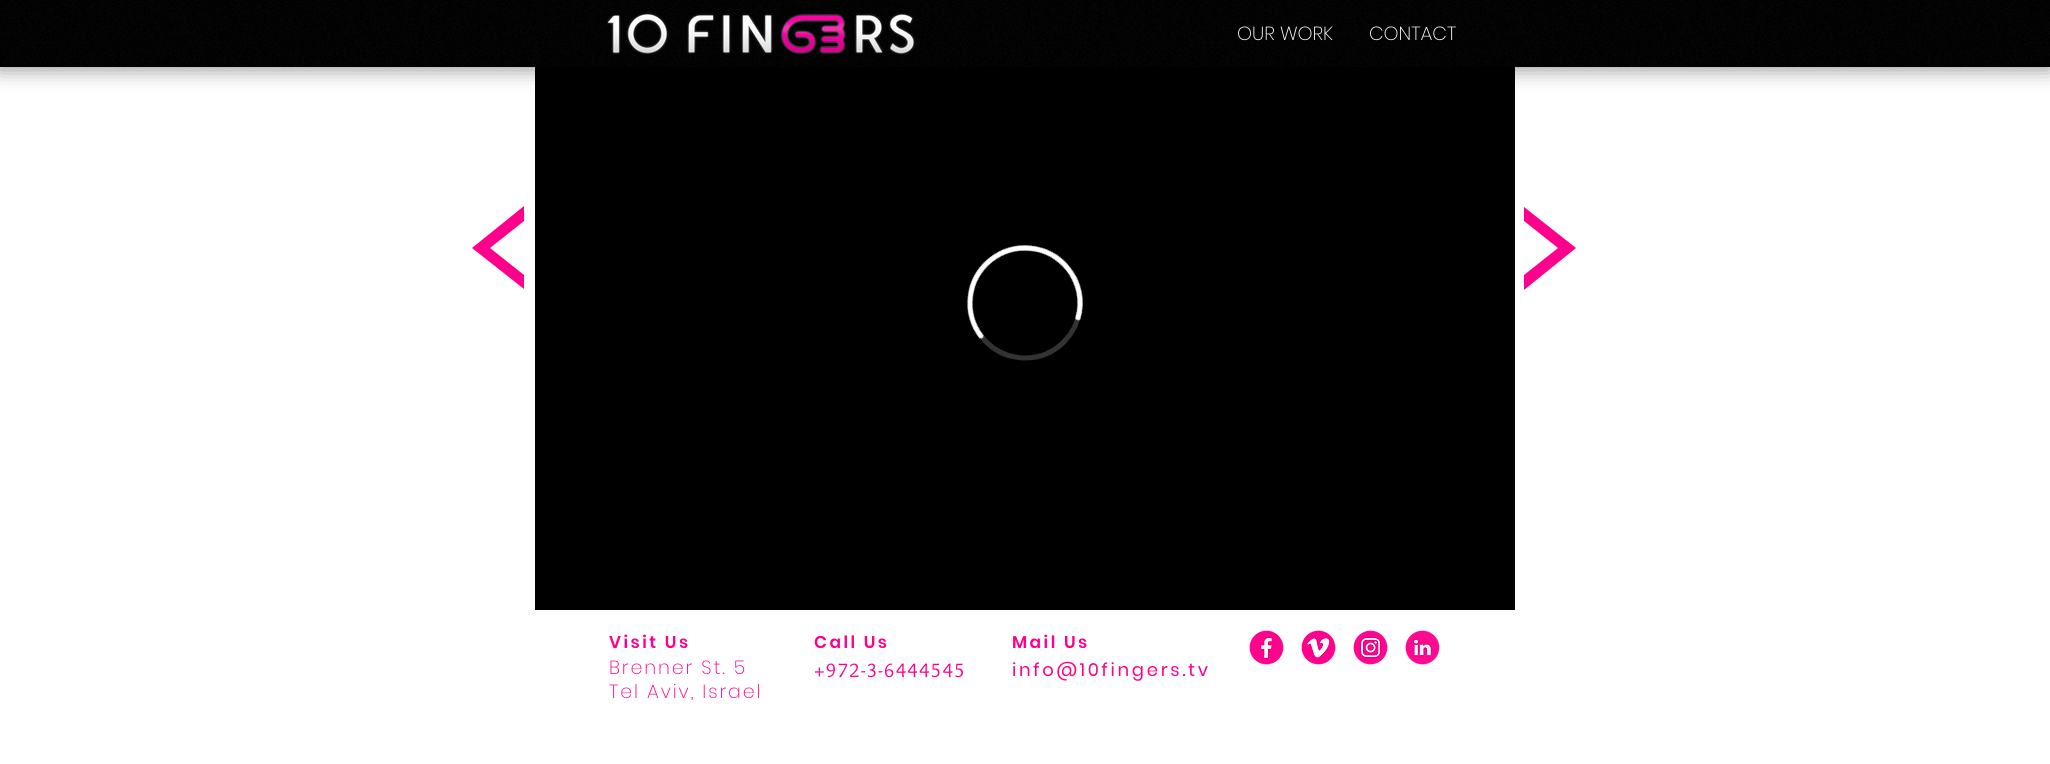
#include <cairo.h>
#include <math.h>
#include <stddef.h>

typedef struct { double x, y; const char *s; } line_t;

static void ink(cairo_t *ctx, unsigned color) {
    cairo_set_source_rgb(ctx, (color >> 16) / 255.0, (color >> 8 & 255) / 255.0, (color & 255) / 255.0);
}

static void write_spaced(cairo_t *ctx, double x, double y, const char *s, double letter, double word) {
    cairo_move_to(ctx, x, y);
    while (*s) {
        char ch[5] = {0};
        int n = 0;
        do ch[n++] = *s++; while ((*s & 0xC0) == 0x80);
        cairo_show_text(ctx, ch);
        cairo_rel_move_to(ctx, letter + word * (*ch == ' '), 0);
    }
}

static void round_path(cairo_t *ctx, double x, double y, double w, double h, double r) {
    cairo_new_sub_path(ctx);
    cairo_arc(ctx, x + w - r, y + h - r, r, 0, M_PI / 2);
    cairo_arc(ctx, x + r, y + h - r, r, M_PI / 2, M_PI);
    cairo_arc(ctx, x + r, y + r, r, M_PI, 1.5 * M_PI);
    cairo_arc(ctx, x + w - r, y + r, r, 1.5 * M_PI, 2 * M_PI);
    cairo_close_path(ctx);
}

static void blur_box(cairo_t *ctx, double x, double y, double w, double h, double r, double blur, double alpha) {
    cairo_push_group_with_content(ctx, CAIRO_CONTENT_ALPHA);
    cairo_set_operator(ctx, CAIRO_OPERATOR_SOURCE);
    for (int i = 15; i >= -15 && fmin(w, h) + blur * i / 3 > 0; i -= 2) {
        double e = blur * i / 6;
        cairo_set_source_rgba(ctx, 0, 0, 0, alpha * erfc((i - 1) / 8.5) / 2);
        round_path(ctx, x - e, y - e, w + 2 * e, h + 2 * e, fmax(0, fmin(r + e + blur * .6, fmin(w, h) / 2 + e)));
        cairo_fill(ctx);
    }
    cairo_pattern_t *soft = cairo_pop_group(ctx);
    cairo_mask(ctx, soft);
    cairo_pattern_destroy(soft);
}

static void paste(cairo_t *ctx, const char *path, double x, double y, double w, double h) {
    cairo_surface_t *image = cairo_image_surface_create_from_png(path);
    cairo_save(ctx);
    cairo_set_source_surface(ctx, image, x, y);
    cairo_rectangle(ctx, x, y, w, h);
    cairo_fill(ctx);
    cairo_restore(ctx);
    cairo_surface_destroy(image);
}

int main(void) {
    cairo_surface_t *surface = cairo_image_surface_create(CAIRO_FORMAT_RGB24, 2050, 764);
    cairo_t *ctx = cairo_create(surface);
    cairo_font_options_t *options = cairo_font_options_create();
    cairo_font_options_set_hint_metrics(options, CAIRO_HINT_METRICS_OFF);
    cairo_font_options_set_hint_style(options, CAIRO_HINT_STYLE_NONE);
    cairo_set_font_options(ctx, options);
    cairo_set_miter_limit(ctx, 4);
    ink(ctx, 0xFFFFFF);
    cairo_paint(ctx);
    paste(ctx, "media/3.png", 535, 67, 980, 543);
    ink(ctx, 0x000000);
    blur_box(ctx, -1, 1, 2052, 69, 0, 10, 0.4);
    ink(ctx, 0x000000);
    cairo_rectangle(ctx, 0, 0, 2050, 67);
    cairo_fill(ctx);
    paste(ctx, "media/1.png", 0, 0, 2050, 67);
    paste(ctx, "media/2.png", 606, 12, 310, 43);
    cairo_select_font_face(ctx, "Poppins ExtraLight", CAIRO_FONT_SLANT_NORMAL, CAIRO_FONT_WEIGHT_NORMAL);
    cairo_set_font_size(ctx, 19);
    ink(ctx, 0xFFFFFF);
    cairo_move_to(ctx, 1237, 40);
    cairo_show_text(ctx, "OUR WORK");
    cairo_move_to(ctx, 1369, 40);
    cairo_show_text(ctx, "CONTACT");
    ink(ctx, 0xFF008C);
    cairo_new_path(ctx);
    cairo_move_to(ctx, 472, 248);
    cairo_line_to(ctx, 524, 289);
    cairo_line_to(ctx, 524, 275);
    cairo_line_to(ctx, 490, 248);
    cairo_line_to(ctx, 524, 221);
    cairo_line_to(ctx, 524, 206);
    cairo_close_path(ctx);
    cairo_fill(ctx);
    cairo_new_path(ctx);
    cairo_move_to(ctx, 1576, 248);
    cairo_line_to(ctx, 1524, 207);
    cairo_line_to(ctx, 1524, 221);
    cairo_line_to(ctx, 1558, 248);
    cairo_line_to(ctx, 1524, 275);
    cairo_line_to(ctx, 1524, 290);
    cairo_close_path(ctx);
    cairo_fill(ctx);
    cairo_select_font_face(ctx, "Poppins SemiBold", CAIRO_FONT_SLANT_NORMAL, CAIRO_FONT_WEIGHT_NORMAL);
    cairo_set_font_size(ctx, 17);
    {
        static const line_t items[] = {
            {609, 648, "Visit Us"},
            {814, 648, "Call Us"},
            {1012, 648, "Mail Us"},
        };
        for (size_t i = 0; i < sizeof items / sizeof *items; i++) {
            write_spaced(ctx, items[i].x, items[i].y, items[i].s, 2.5, 0);
        }
    }
    paste(ctx, "media/4.png", 1249, 630, 35, 35);
    paste(ctx, "media/5.png", 1301, 630, 35, 35);
    paste(ctx, "media/6.png", 1353, 630, 35, 35);
    paste(ctx, "media/7.png", 1405, 630, 35, 35);
    cairo_select_font_face(ctx, "Poppins ExtraLight", CAIRO_FONT_SLANT_NORMAL, CAIRO_FONT_WEIGHT_NORMAL);
    cairo_set_font_size(ctx, 19);
    write_spaced(ctx, 609, 674, "Brenner St. 5", 1.9, 0);
    write_spaced(ctx, 609, 698, "Tel Aviv, Israel", 1.9, 0);
    cairo_select_font_face(ctx, "Overlock", CAIRO_FONT_SLANT_NORMAL, CAIRO_FONT_WEIGHT_NORMAL);
    cairo_set_font_size(ctx, 20);
    write_spaced(ctx, 814, 677, "+972-3-6444545", 1, 0);
    cairo_select_font_face(ctx, "Poppins", CAIRO_FONT_SLANT_NORMAL, CAIRO_FONT_WEIGHT_NORMAL);
    cairo_set_font_size(ctx, 18);
    write_spaced(ctx, 1012, 676, "info@10fingers.tv", 2.75, 0);
    cairo_surface_write_to_png(surface, "image.png");
    cairo_font_options_destroy(options);
    cairo_destroy(ctx);
    cairo_surface_destroy(surface);
    return 0;
}
